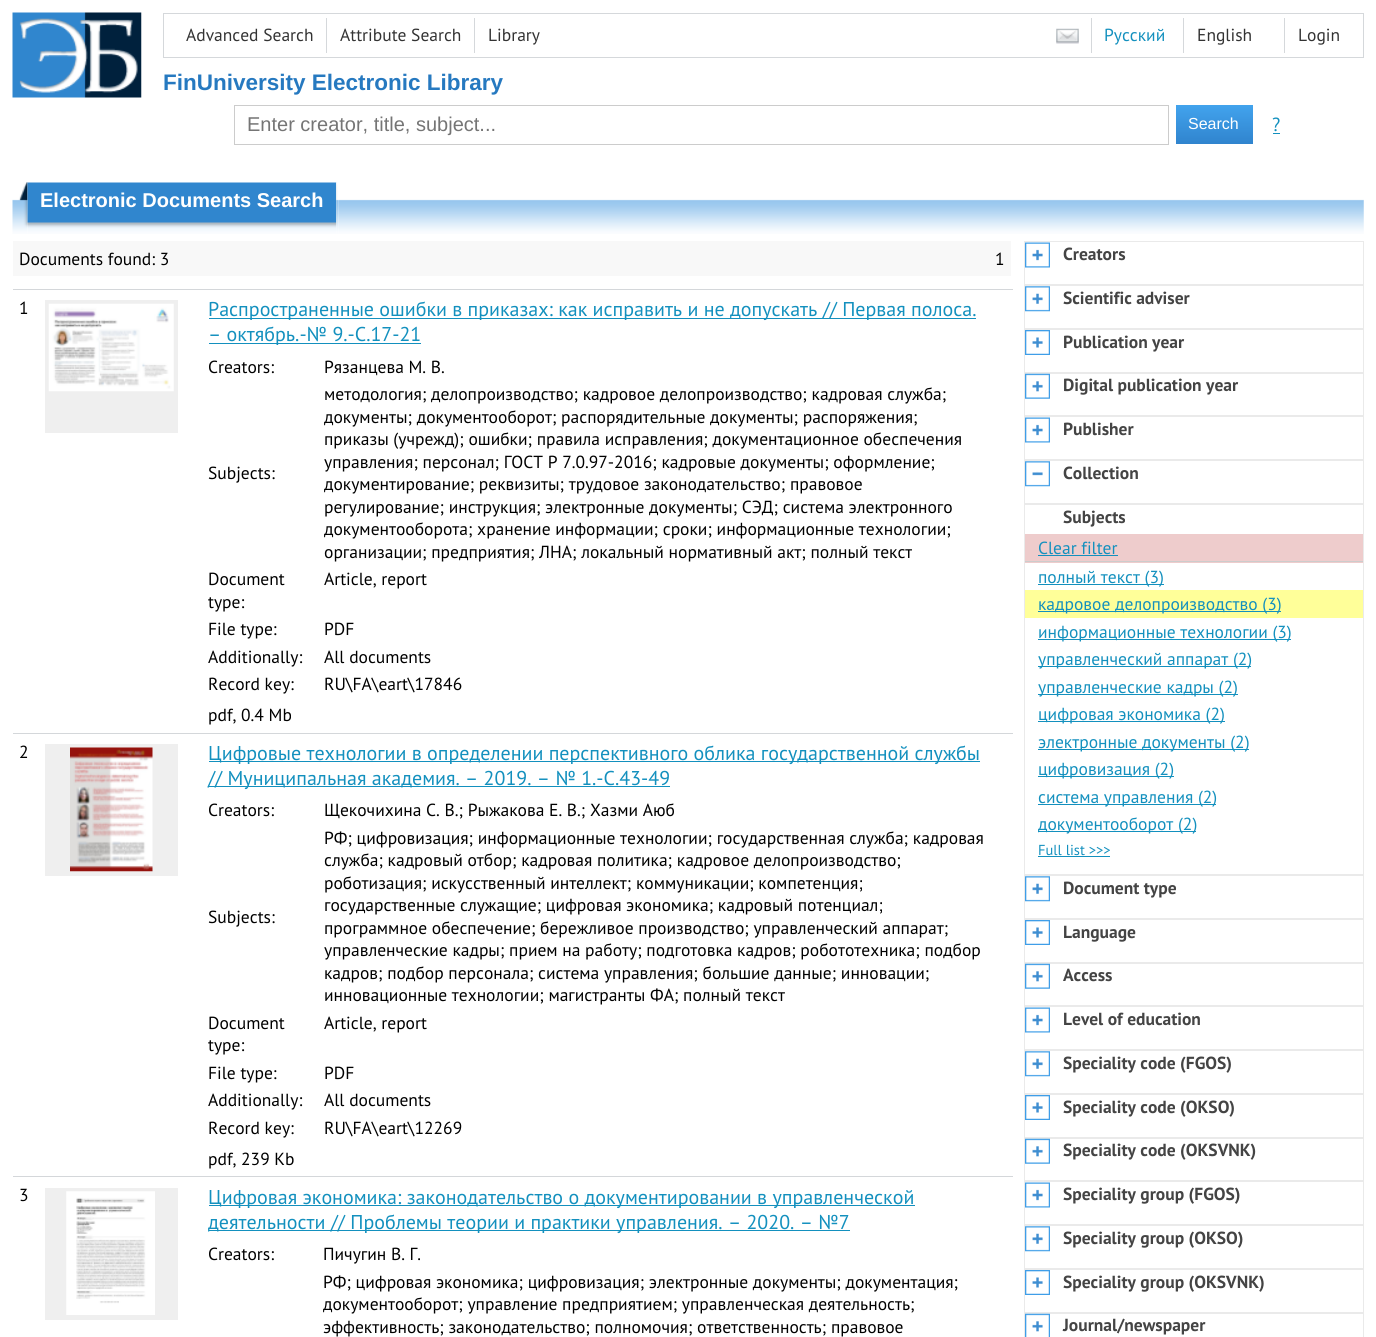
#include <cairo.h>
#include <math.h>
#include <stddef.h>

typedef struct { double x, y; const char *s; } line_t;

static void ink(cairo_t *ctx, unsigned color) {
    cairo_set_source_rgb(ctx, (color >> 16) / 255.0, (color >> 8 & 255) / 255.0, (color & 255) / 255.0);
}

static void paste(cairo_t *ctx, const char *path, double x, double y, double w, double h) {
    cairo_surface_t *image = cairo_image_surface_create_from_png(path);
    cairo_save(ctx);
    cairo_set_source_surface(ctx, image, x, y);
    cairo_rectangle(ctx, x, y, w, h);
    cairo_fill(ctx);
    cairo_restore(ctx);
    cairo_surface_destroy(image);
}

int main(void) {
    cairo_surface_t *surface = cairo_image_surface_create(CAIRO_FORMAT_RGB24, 1376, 1337);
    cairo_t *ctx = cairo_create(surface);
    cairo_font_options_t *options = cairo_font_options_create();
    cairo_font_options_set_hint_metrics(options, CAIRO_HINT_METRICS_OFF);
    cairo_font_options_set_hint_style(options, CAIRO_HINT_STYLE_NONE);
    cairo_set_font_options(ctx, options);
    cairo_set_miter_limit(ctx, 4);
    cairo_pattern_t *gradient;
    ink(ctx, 0xFFFFFF);
    cairo_paint(ctx);
    paste(ctx, "media/1.png", 12, 12, 130, 86);
    cairo_rectangle(ctx, 163.5, 13.5, 1200, 44);
    ink(ctx, 0xD5D8DB);
    cairo_set_line_width(ctx, 1);
    cairo_stroke(ctx);
    cairo_select_font_face(ctx, "PT Sans", CAIRO_FONT_SLANT_NORMAL, CAIRO_FONT_WEIGHT_NORMAL);
    cairo_set_font_size(ctx, 17.5);
    ink(ctx, 0x333333);
    cairo_move_to(ctx, 186, 41);
    cairo_show_text(ctx, "Advanced Search");
    ink(ctx, 0xD5D8DB);
    cairo_rectangle(ctx, 326, 18, 1, 35);
    cairo_fill(ctx);
    ink(ctx, 0x333333);
    cairo_move_to(ctx, 340, 41);
    cairo_show_text(ctx, "Attribute Search");
    ink(ctx, 0xD5D8DB);
    cairo_rectangle(ctx, 474, 18, 1, 35);
    cairo_fill(ctx);
    ink(ctx, 0x333333);
    cairo_move_to(ctx, 488, 41);
    cairo_show_text(ctx, "Library");
    paste(ctx, "media/2.png", 1056, 28, 23, 16);
    ink(ctx, 0x1390BE);
    cairo_move_to(ctx, 1104, 41);
    cairo_show_text(ctx, "Русский");
    ink(ctx, 0xD5D8DB);
    cairo_rectangle(ctx, 1091, 18, 1, 35);
    cairo_fill(ctx);
    ink(ctx, 0x333333);
    cairo_move_to(ctx, 1197, 41);
    cairo_show_text(ctx, "English");
    ink(ctx, 0xD5D8DB);
    cairo_rectangle(ctx, 1183, 18, 1, 35);
    cairo_fill(ctx);
    ink(ctx, 0x333333);
    cairo_move_to(ctx, 1298, 41);
    cairo_show_text(ctx, "Login");
    ink(ctx, 0xD5D8DB);
    cairo_rectangle(ctx, 1284, 18, 1, 35);
    cairo_fill(ctx);
    cairo_select_font_face(ctx, "Liberation Sans", CAIRO_FONT_SLANT_NORMAL, CAIRO_FONT_WEIGHT_BOLD);
    cairo_set_font_size(ctx, 22.5);
    ink(ctx, 0x2679C0);
    cairo_move_to(ctx, 163, 90);
    cairo_show_text(ctx, "FinUniversity Electronic Library");
    cairo_rectangle(ctx, 234.5, 105.5, 934, 39);
    ink(ctx, 0xCCCCCC);
    cairo_stroke(ctx);
    cairo_select_font_face(ctx, "Liberation Sans", CAIRO_FONT_SLANT_NORMAL, CAIRO_FONT_WEIGHT_NORMAL);
    cairo_set_font_size(ctx, 20);
    ink(ctx, 0x757575);
    cairo_move_to(ctx, 247, 131);
    cairo_show_text(ctx, "Enter creator, title, subject...");
    gradient = cairo_pattern_create_linear(1214, 105, 1214, 144);
    cairo_pattern_add_color_stop_rgba(gradient, 0, 0.259, 0.639, 0.929, 1);
    cairo_pattern_add_color_stop_rgba(gradient, 1, 0.188, 0.518, 0.808, 1);
    cairo_set_source(ctx, gradient);
    cairo_pattern_destroy(gradient);
    cairo_rectangle(ctx, 1176, 105, 77, 39);
    cairo_fill(ctx);
    cairo_set_font_size(ctx, 16);
    ink(ctx, 0xFFFFFF);
    cairo_move_to(ctx, 1188, 129);
    cairo_show_text(ctx, "Search");
    cairo_select_font_face(ctx, "PT Sans", CAIRO_FONT_SLANT_NORMAL, CAIRO_FONT_WEIGHT_NORMAL);
    cairo_set_font_size(ctx, 19);
    ink(ctx, 0x1390BE);
    cairo_move_to(ctx, 1272, 131);
    cairo_show_text(ctx, "?");
    cairo_rectangle(ctx, 1273, 133, 7, 1);
    cairo_fill(ctx);
    paste(ctx, "media/3.png", 12, 182, 16, 52);
    paste(ctx, "media/4.png", 27, 182, 310, 52);
    cairo_select_font_face(ctx, "Liberation Sans", CAIRO_FONT_SLANT_NORMAL, CAIRO_FONT_WEIGHT_BOLD);
    cairo_set_font_size(ctx, 20);
    ink(ctx, 0xFFFFFF);
    cairo_move_to(ctx, 40, 207);
    cairo_show_text(ctx, "Electronic Documents Search");
    paste(ctx, "media/5.png", 336, 182, 3, 52);
    paste(ctx, "media/6.png", 338, 199, 1026, 35);
    ink(ctx, 0xF8F8F8);
    cairo_rectangle(ctx, 13, 241, 998, 35);
    cairo_fill(ctx);
    cairo_select_font_face(ctx, "PT Sans", CAIRO_FONT_SLANT_NORMAL, CAIRO_FONT_WEIGHT_NORMAL);
    cairo_set_font_size(ctx, 17.5);
    ink(ctx, 0x000000);
    cairo_move_to(ctx, 19, 265);
    cairo_show_text(ctx, "Documents found: 3");
    cairo_move_to(ctx, 995, 265);
    cairo_show_text(ctx, "1");
    ink(ctx, 0xD4D7DA);
    cairo_rectangle(ctx, 13, 289, 1000, 1);
    cairo_fill(ctx);
    ink(ctx, 0x000000);
    cairo_move_to(ctx, 19, 314);
    cairo_show_text(ctx, "1");
    ink(ctx, 0xEFEFEF);
    cairo_rectangle(ctx, 45, 300, 133, 133);
    cairo_fill(ctx);
    paste(ctx, "media/7.png", 48, 303, 126, 89);
    ink(ctx, 0x1390BE);
    cairo_rectangle(ctx, 209, 318, 767, 1);
    cairo_fill(ctx);
    cairo_set_font_size(ctx, 20);
    cairo_move_to(ctx, 208, 316);
    cairo_show_text(ctx, "Распространенные ошибки в приказах: как исправить и не допускать // Первая полоса.");
    cairo_rectangle(ctx, 209, 343, 212, 1);
    cairo_fill(ctx);
    cairo_move_to(ctx, 208, 341);
    cairo_show_text(ctx, "– октябрь.-№ 9.-С.17-21");
    cairo_set_font_size(ctx, 17.5);
    ink(ctx, 0x000000);
    {
        static const line_t items[] = {
            {208, 373, "Creators:"},
            {324, 373, "Рязанцева М. В."},
            {208, 479, "Subjects:"},
            {324, 400, "методология; делопроизводство; кадровое делопроизводство; кадровая служба;"},
            {324, 423, "документы; документооборот; распорядительные документы; распоряжения;"},
            {324, 445, "приказы (учрежд); ошибки; правила исправления; документационное обеспечения"},
            {324, 468, "управления; персонал; ГОСТ Р 7.0.97-2016; кадровые документы; оформление;"},
            {324, 490, "документирование; реквизиты; трудовое законодательство; правовое"},
            {324, 513, "регулирование; инструкция; электронные документы; СЭД; система электронного"},
            {324, 535, "документооборота; хранение информации; сроки; информационные технологии;"},
            {324, 558, "организации; предприятия; ЛНА; локальный нормативный акт; полный текст"},
            {208, 585, "Document"},
            {208, 608, "type:"},
            {324, 585, "Article, report"},
            {208, 635, "File type:"},
            {324, 635, "PDF"},
            {208, 663, "Additionally:"},
            {324, 663, "All documents"},
            {208, 690, "Record key:"},
            {324, 690, "RU\\FA\\eart\\17846"},
            {208, 721, "pdf, 0.4 Mb"},
        };
        for (size_t i = 0; i < sizeof items / sizeof *items; i++) {
            cairo_move_to(ctx, items[i].x, items[i].y);
            cairo_show_text(ctx, items[i].s);
        }
    }
    ink(ctx, 0xD4D7DA);
    cairo_rectangle(ctx, 13, 733, 1000, 1);
    cairo_fill(ctx);
    ink(ctx, 0x000000);
    cairo_move_to(ctx, 19, 758);
    cairo_show_text(ctx, "2");
    ink(ctx, 0xEFEFEF);
    cairo_rectangle(ctx, 45, 744, 133, 132);
    cairo_fill(ctx);
    paste(ctx, "media/8.png", 70, 747, 83, 125);
    ink(ctx, 0x1390BE);
    cairo_rectangle(ctx, 209, 761, 771, 1);
    cairo_fill(ctx);
    cairo_set_font_size(ctx, 20);
    cairo_move_to(ctx, 208, 760);
    cairo_show_text(ctx, "Цифровые технологии в определении перспективного облика государственной службы");
    cairo_rectangle(ctx, 209, 786, 461, 1);
    cairo_fill(ctx);
    cairo_move_to(ctx, 208, 785);
    cairo_show_text(ctx, "// Муниципальная академия. – 2019. – № 1.-С.43-49");
    cairo_set_font_size(ctx, 17.5);
    ink(ctx, 0x000000);
    {
        static const line_t items[] = {
            {208, 816, "Creators:"},
            {324, 816, "Щекочихина С. В.; Рыжакова Е. В.; Хазми Аюб"},
            {208, 923, "Subjects:"},
            {324, 844, "РФ; цифровизация; информационные технологии; государственная служба; кадровая"},
            {324, 866, "служба; кадровый отбор; кадровая политика; кадровое делопроизводство;"},
            {324, 889, "роботизация; искусственный интеллект; коммуникации; компетенция;"},
            {324, 911, "государственные служащие; цифровая экономика; кадровый потенциал;"},
            {324, 934, "программное обеспечение; бережливое производство; управленческий аппарат;"},
            {324, 956, "управленческие кадры; прием на работу; подготовка кадров; робототехника; подбор"},
            {324, 979, "кадров; подбор персонала; система управления; большие данные; инновации;"},
            {324, 1001, "инновационные технологии; магистранты ФА; полный текст"},
            {208, 1029, "Document"},
            {208, 1051, "type:"},
            {324, 1029, "Article, report"},
            {208, 1079, "File type:"},
            {324, 1079, "PDF"},
            {208, 1106, "Additionally:"},
            {324, 1106, "All documents"},
            {208, 1134, "Record key:"},
            {324, 1134, "RU\\FA\\eart\\12269"},
            {208, 1165, "pdf, 239 Kb"},
        };
        for (size_t i = 0; i < sizeof items / sizeof *items; i++) {
            cairo_move_to(ctx, items[i].x, items[i].y);
            cairo_show_text(ctx, items[i].s);
        }
    }
    ink(ctx, 0xD4D7DA);
    cairo_rectangle(ctx, 13, 1176, 1000, 1);
    cairo_fill(ctx);
    ink(ctx, 0x000000);
    cairo_move_to(ctx, 19, 1201);
    cairo_show_text(ctx, "3");
    ink(ctx, 0xEFEFEF);
    cairo_rectangle(ctx, 45, 1188, 133, 132);
    cairo_fill(ctx);
    paste(ctx, "media/9.png", 66, 1191, 89, 124);
    ink(ctx, 0x1390BE);
    cairo_rectangle(ctx, 209, 1205, 706, 1);
    cairo_fill(ctx);
    cairo_set_font_size(ctx, 20);
    cairo_move_to(ctx, 208, 1204);
    cairo_show_text(ctx, "Цифровая экономика: законодательство о документировании в управленческой");
    cairo_rectangle(ctx, 209, 1230, 641, 1);
    cairo_fill(ctx);
    cairo_move_to(ctx, 208, 1229);
    cairo_show_text(ctx, "деятельности // Проблемы теории и практики управления. – 2020. – №7");
    cairo_set_font_size(ctx, 17.5);
    ink(ctx, 0x000000);
    {
        static const line_t items[] = {
            {208, 1260, "Creators:"},
            {323, 1260, "Пичугин В. Г."},
            {323, 1288, "РФ; цифровая экономика; цифровизация; электронные документы; документация;"},
            {323, 1310, "документооборот; управление предприятием; управленческая деятельность;"},
            {323, 1333, "эффективность; законодательство; полномочия; ответственность; правовое"},
        };
        for (size_t i = 0; i < sizeof items / sizeof *items; i++) {
            cairo_move_to(ctx, items[i].x, items[i].y);
            cairo_show_text(ctx, items[i].s);
        }
    }
    cairo_rectangle(ctx, 1024.5, 241.5, 339, 43);
    ink(ctx, 0xEAEAEA);
    cairo_stroke(ctx);
    paste(ctx, "media/10.png", 1025, 242, 25, 26);
    cairo_select_font_face(ctx, "PT Sans", CAIRO_FONT_SLANT_NORMAL, CAIRO_FONT_WEIGHT_BOLD);
    ink(ctx, 0x444444);
    cairo_move_to(ctx, 1063, 260);
    cairo_show_text(ctx, "Creators");
    cairo_rectangle(ctx, 1024.5, 285.5, 339, 43);
    ink(ctx, 0xEAEAEA);
    cairo_stroke(ctx);
    paste(ctx, "media/11.png", 1025, 286, 25, 26);
    ink(ctx, 0x444444);
    cairo_move_to(ctx, 1063, 304);
    cairo_show_text(ctx, "Scientific adviser");
    cairo_rectangle(ctx, 1024.5, 329.5, 339, 43);
    ink(ctx, 0xEAEAEA);
    cairo_stroke(ctx);
    paste(ctx, "media/12.png", 1025, 330, 25, 25);
    ink(ctx, 0x444444);
    cairo_move_to(ctx, 1063, 348);
    cairo_show_text(ctx, "Publication year");
    cairo_rectangle(ctx, 1024.5, 373.5, 339, 42);
    ink(ctx, 0xEAEAEA);
    cairo_stroke(ctx);
    paste(ctx, "media/13.png", 1025, 373, 25, 26);
    ink(ctx, 0x444444);
    cairo_move_to(ctx, 1063, 391);
    cairo_show_text(ctx, "Digital publication year");
    cairo_rectangle(ctx, 1024.5, 416.5, 339, 43);
    ink(ctx, 0xEAEAEA);
    cairo_stroke(ctx);
    paste(ctx, "media/10.png", 1025, 417, 25, 26);
    ink(ctx, 0x444444);
    cairo_move_to(ctx, 1063, 435);
    cairo_show_text(ctx, "Publisher");
    cairo_rectangle(ctx, 1024.5, 460.5, 339, 43);
    ink(ctx, 0xEAEAEA);
    cairo_stroke(ctx);
    paste(ctx, "media/14.png", 1025, 461, 25, 26);
    ink(ctx, 0x444444);
    cairo_move_to(ctx, 1063, 479);
    cairo_show_text(ctx, "Collection");
    cairo_rectangle(ctx, 1024.5, 504.5, 339, 370);
    ink(ctx, 0xEAEAEA);
    cairo_stroke(ctx);
    ink(ctx, 0x444444);
    cairo_move_to(ctx, 1063, 523);
    cairo_show_text(ctx, "Subjects");
    ink(ctx, 0xEECCCC);
    cairo_rectangle(ctx, 1025, 534, 338, 29);
    cairo_fill(ctx);
    ink(ctx, 0xCCCCCC);
    cairo_rectangle(ctx, 1025, 561, 338, 1);
    cairo_fill(ctx);
    cairo_select_font_face(ctx, "PT Sans", CAIRO_FONT_SLANT_NORMAL, CAIRO_FONT_WEIGHT_NORMAL);
    ink(ctx, 0x1390BE);
    cairo_move_to(ctx, 1038, 554);
    cairo_show_text(ctx, "Clear filter");
    cairo_rectangle(ctx, 1038, 555, 80, 1);
    cairo_fill(ctx);
    cairo_rectangle(ctx, 1038, 584, 126, 1);
    cairo_fill(ctx);
    cairo_move_to(ctx, 1038, 583);
    cairo_show_text(ctx, "полный текст (3)");
    ink(ctx, 0xFFFF99);
    cairo_rectangle(ctx, 1025, 590, 338, 28);
    cairo_fill(ctx);
    ink(ctx, 0x1390BE);
    cairo_rectangle(ctx, 1038, 611, 243, 1);
    cairo_fill(ctx);
    cairo_move_to(ctx, 1038, 610);
    cairo_show_text(ctx, "кадровое делопроизводство (3)");
    cairo_rectangle(ctx, 1038, 639, 253, 1);
    cairo_fill(ctx);
    cairo_move_to(ctx, 1038, 638);
    cairo_show_text(ctx, "информационные технологии (3)");
    cairo_rectangle(ctx, 1038, 666, 213, 1);
    cairo_fill(ctx);
    cairo_move_to(ctx, 1038, 665);
    cairo_show_text(ctx, "управленческий аппарат (2)");
    cairo_rectangle(ctx, 1038, 694, 200, 1);
    cairo_fill(ctx);
    cairo_move_to(ctx, 1038, 693);
    cairo_show_text(ctx, "управленческие кадры (2)");
    cairo_rectangle(ctx, 1038, 721, 187, 1);
    cairo_fill(ctx);
    cairo_move_to(ctx, 1038, 720);
    cairo_show_text(ctx, "цифровая экономика (2)");
    cairo_rectangle(ctx, 1038, 749, 211, 1);
    cairo_fill(ctx);
    cairo_move_to(ctx, 1038, 748);
    cairo_show_text(ctx, "электронные документы (2)");
    cairo_rectangle(ctx, 1038, 776, 136, 1);
    cairo_fill(ctx);
    cairo_move_to(ctx, 1038, 775);
    cairo_show_text(ctx, "цифровизация (2)");
    cairo_rectangle(ctx, 1038, 804, 178, 1);
    cairo_fill(ctx);
    cairo_move_to(ctx, 1038, 803);
    cairo_show_text(ctx, "система управления (2)");
    cairo_rectangle(ctx, 1038, 831, 158, 1);
    cairo_fill(ctx);
    cairo_move_to(ctx, 1038, 830);
    cairo_show_text(ctx, "документооборот (2)");
    cairo_set_font_size(ctx, 14.5);
    cairo_move_to(ctx, 1038, 855);
    cairo_show_text(ctx, "Full list >>>");
    cairo_rectangle(ctx, 1038, 856, 72, 1);
    cairo_fill(ctx);
    cairo_rectangle(ctx, 1024.5, 875.5, 339, 43);
    ink(ctx, 0xEAEAEA);
    cairo_stroke(ctx);
    paste(ctx, "media/15.png", 1025, 876, 25, 26);
    cairo_select_font_face(ctx, "PT Sans", CAIRO_FONT_SLANT_NORMAL, CAIRO_FONT_WEIGHT_BOLD);
    cairo_set_font_size(ctx, 17.5);
    ink(ctx, 0x444444);
    cairo_move_to(ctx, 1063, 894);
    cairo_show_text(ctx, "Document type");
    cairo_rectangle(ctx, 1024.5, 919.5, 339, 43);
    ink(ctx, 0xEAEAEA);
    cairo_stroke(ctx);
    paste(ctx, "media/12.png", 1025, 920, 25, 25);
    ink(ctx, 0x444444);
    cairo_move_to(ctx, 1063, 938);
    cairo_show_text(ctx, "Language");
    cairo_rectangle(ctx, 1024.5, 963.5, 339, 42);
    ink(ctx, 0xEAEAEA);
    cairo_stroke(ctx);
    paste(ctx, "media/13.png", 1025, 963, 25, 26);
    ink(ctx, 0x444444);
    cairo_move_to(ctx, 1063, 981);
    cairo_show_text(ctx, "Access");
    cairo_rectangle(ctx, 1024.5, 1006.5, 339, 43);
    ink(ctx, 0xEAEAEA);
    cairo_stroke(ctx);
    paste(ctx, "media/10.png", 1025, 1007, 25, 26);
    ink(ctx, 0x444444);
    cairo_move_to(ctx, 1063, 1025);
    cairo_show_text(ctx, "Level of education");
    cairo_rectangle(ctx, 1024.5, 1050.5, 339, 43);
    ink(ctx, 0xEAEAEA);
    cairo_stroke(ctx);
    paste(ctx, "media/15.png", 1025, 1051, 25, 26);
    ink(ctx, 0x444444);
    cairo_move_to(ctx, 1063, 1069);
    cairo_show_text(ctx, "Speciality code (FGOS)");
    cairo_rectangle(ctx, 1024.5, 1094.5, 339, 43);
    ink(ctx, 0xEAEAEA);
    cairo_stroke(ctx);
    paste(ctx, "media/12.png", 1025, 1095, 25, 25);
    ink(ctx, 0x444444);
    cairo_move_to(ctx, 1063, 1113);
    cairo_show_text(ctx, "Speciality code (OKSO)");
    cairo_rectangle(ctx, 1024.5, 1138.5, 339, 42);
    ink(ctx, 0xEAEAEA);
    cairo_stroke(ctx);
    paste(ctx, "media/13.png", 1025, 1138, 25, 26);
    ink(ctx, 0x444444);
    cairo_move_to(ctx, 1063, 1156);
    cairo_show_text(ctx, "Speciality code (OKSVNK)");
    cairo_rectangle(ctx, 1024.5, 1181.5, 339, 43);
    ink(ctx, 0xEAEAEA);
    cairo_stroke(ctx);
    paste(ctx, "media/10.png", 1025, 1182, 25, 26);
    ink(ctx, 0x444444);
    cairo_move_to(ctx, 1063, 1200);
    cairo_show_text(ctx, "Speciality group (FGOS)");
    cairo_rectangle(ctx, 1024.5, 1225.5, 339, 43);
    ink(ctx, 0xEAEAEA);
    cairo_stroke(ctx);
    paste(ctx, "media/15.png", 1025, 1226, 25, 26);
    ink(ctx, 0x444444);
    cairo_move_to(ctx, 1063, 1244);
    cairo_show_text(ctx, "Speciality group (OKSO)");
    cairo_rectangle(ctx, 1024.5, 1269.5, 339, 43);
    ink(ctx, 0xEAEAEA);
    cairo_stroke(ctx);
    paste(ctx, "media/12.png", 1025, 1270, 25, 25);
    ink(ctx, 0x444444);
    cairo_move_to(ctx, 1063, 1288);
    cairo_show_text(ctx, "Speciality group (OKSVNK)");
    cairo_rectangle(ctx, 1024.5, 1313.5, 339, 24);
    ink(ctx, 0xEAEAEA);
    cairo_stroke(ctx);
    paste(ctx, "media/16.png", 1025, 1313, 25, 24);
    ink(ctx, 0x444444);
    cairo_move_to(ctx, 1063, 1331);
    cairo_show_text(ctx, "Journal/newspaper");
    cairo_surface_write_to_png(surface, "image.png");
    cairo_font_options_destroy(options);
    cairo_destroy(ctx);
    cairo_surface_destroy(surface);
    return 0;
}
